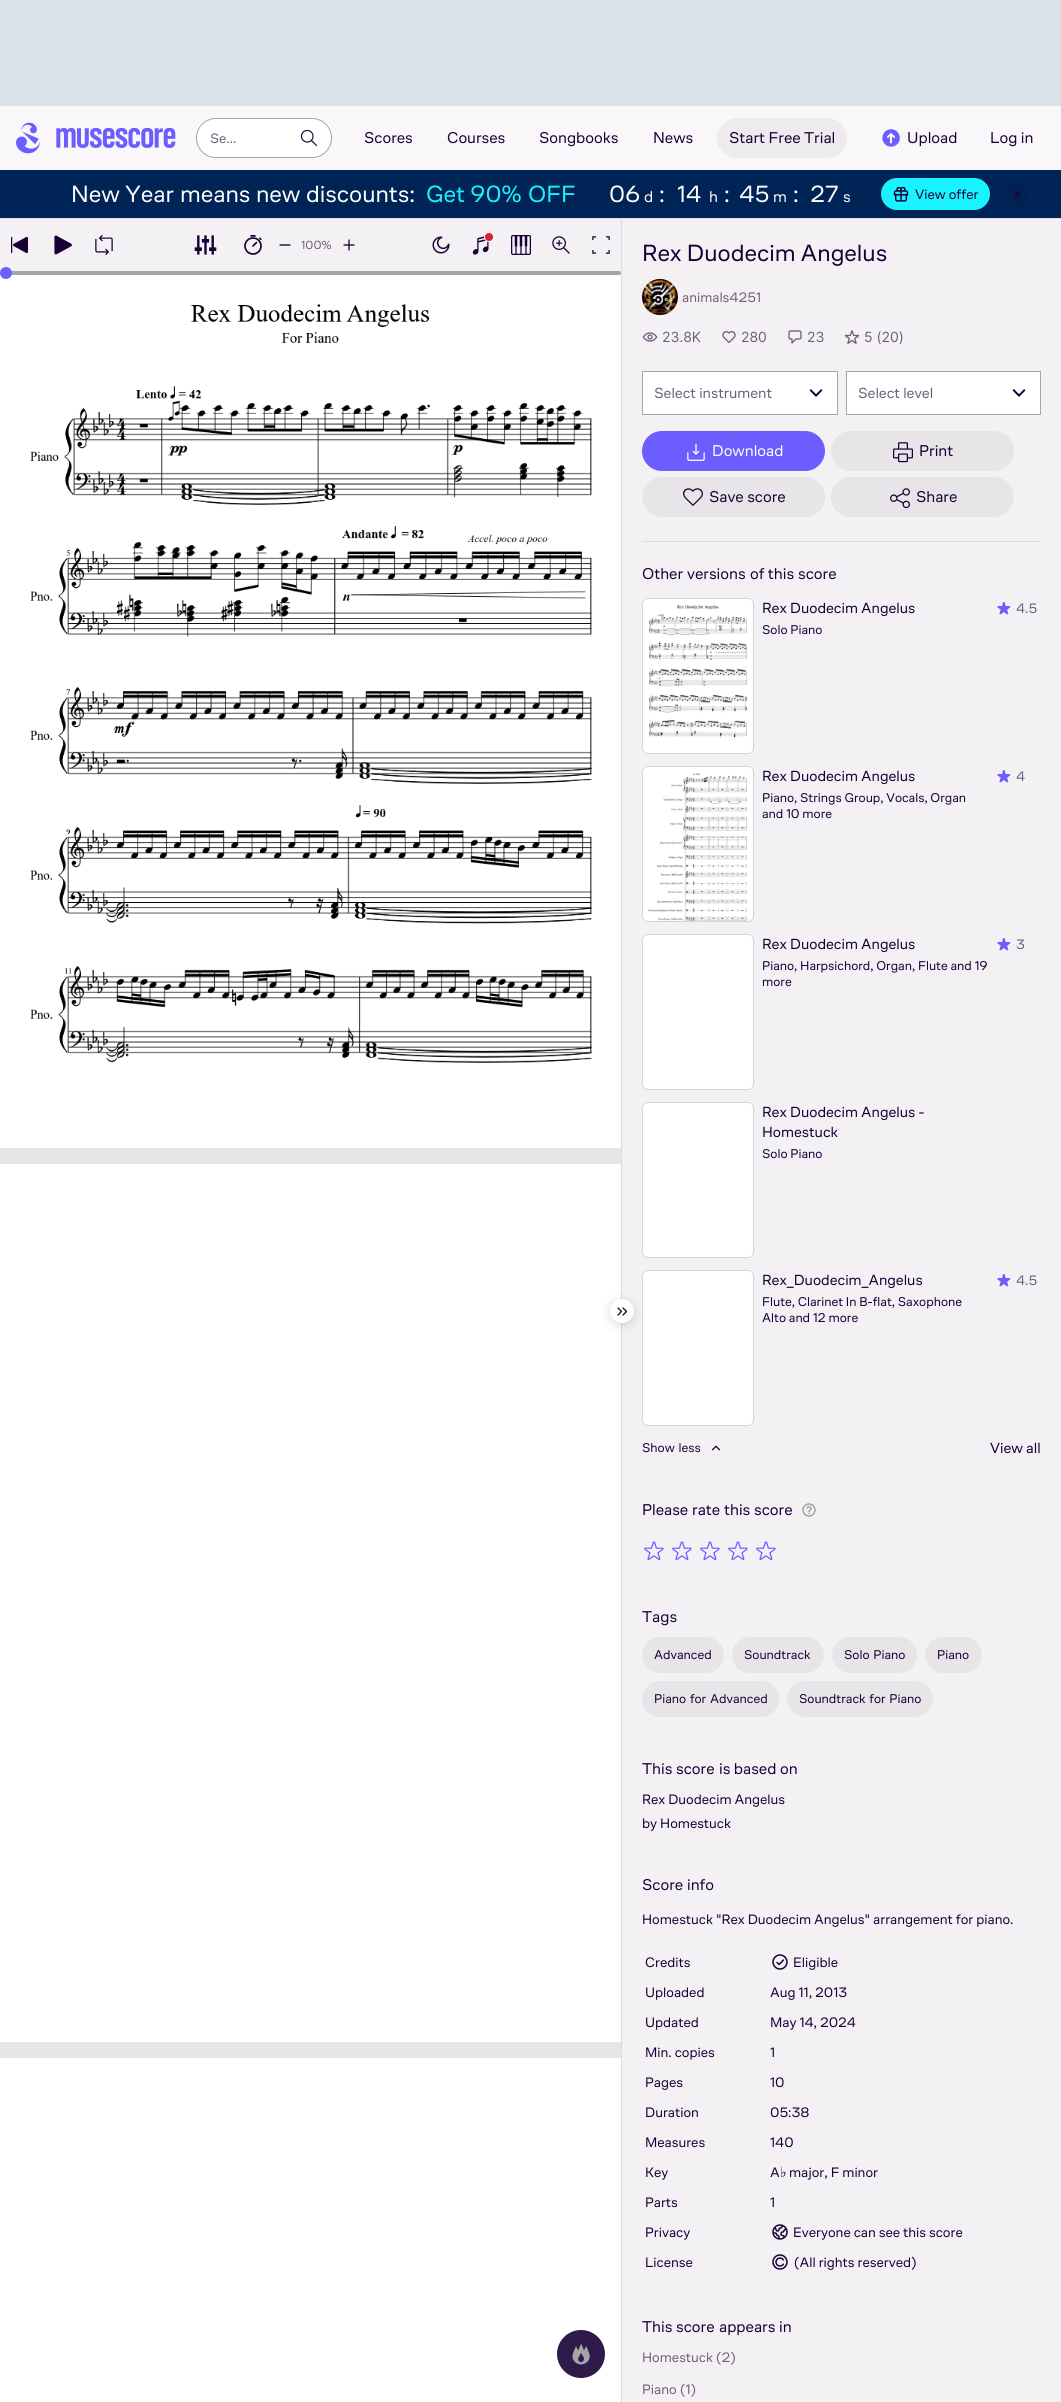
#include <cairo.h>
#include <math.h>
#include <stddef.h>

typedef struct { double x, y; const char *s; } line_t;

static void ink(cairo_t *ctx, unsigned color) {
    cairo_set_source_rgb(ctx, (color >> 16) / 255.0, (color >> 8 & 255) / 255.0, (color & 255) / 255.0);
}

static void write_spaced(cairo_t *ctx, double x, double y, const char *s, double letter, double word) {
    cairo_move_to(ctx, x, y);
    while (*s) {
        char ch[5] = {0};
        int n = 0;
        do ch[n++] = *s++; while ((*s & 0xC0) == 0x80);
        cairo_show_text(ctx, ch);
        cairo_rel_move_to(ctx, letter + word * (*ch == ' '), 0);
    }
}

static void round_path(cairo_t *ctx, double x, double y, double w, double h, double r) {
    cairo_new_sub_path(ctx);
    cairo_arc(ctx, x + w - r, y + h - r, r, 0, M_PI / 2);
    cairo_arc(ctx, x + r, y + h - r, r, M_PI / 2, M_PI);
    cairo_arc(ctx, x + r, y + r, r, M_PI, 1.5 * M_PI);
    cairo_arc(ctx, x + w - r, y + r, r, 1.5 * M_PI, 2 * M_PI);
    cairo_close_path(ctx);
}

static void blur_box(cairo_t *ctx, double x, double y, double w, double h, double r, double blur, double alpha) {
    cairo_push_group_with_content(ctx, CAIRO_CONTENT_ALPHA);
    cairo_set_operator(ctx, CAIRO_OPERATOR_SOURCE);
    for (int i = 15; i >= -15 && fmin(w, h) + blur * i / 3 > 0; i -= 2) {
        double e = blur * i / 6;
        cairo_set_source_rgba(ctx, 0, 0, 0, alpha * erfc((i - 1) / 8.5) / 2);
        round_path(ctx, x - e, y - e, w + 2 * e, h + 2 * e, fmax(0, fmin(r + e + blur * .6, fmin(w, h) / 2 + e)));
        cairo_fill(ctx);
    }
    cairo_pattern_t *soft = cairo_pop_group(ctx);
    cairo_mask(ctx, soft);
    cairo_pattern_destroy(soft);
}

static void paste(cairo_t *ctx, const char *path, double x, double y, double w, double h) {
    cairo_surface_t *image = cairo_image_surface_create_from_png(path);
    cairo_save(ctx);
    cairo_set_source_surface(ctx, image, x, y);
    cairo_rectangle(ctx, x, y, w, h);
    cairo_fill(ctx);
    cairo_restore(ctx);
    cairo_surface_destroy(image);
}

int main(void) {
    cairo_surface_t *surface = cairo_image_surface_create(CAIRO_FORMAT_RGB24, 1061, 2402);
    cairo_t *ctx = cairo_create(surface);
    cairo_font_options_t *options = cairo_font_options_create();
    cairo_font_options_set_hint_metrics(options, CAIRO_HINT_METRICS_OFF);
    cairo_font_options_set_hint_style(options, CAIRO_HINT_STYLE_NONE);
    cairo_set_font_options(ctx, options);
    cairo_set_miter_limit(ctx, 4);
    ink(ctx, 0xF9F7FA);
    cairo_paint(ctx);
    ink(ctx, 0xE2DEE6);
    cairo_rectangle(ctx, 0, 218, 1061, 1);
    cairo_fill(ctx);
    ink(ctx, 0xDAE3E9);
    cairo_rectangle(ctx, 0, 0, 1061, 106);
    cairo_fill(ctx);
    paste(ctx, "media/1.png", 16, 122, 160, 32);
    ink(ctx, 0xFFFFFF);
    round_path(ctx, 196.5, 118.5, 135, 39, 19.5);
    cairo_fill_preserve(ctx);
    ink(ctx, 0xA7A4A9);
    cairo_set_line_width(ctx, 1);
    cairo_stroke(ctx);
    cairo_select_font_face(ctx, "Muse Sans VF", CAIRO_FONT_SLANT_NORMAL, CAIRO_FONT_WEIGHT_NORMAL);
    cairo_set_font_size(ctx, 14);
    ink(ctx, 0x6E5F79);
    cairo_move_to(ctx, 210, 143);
    cairo_show_text(ctx, "Se…");
    paste(ctx, "media/2.png", 300, 129, 17, 18);
    cairo_set_font_size(ctx, 16);
    ink(ctx, 0x180036);
    {
        static const line_t items[] = {
            {364, 143, "Scores"},
            {447, 143, "Courses"},
            {539, 143, "Songbooks"},
            {653, 143, "News"},
        };
        for (size_t i = 0; i < sizeof items / sizeof *items; i++) {
            cairo_move_to(ctx, items[i].x, items[i].y);
            cairo_show_text(ctx, items[i].s);
        }
    }
    ink(ctx, 0xEDEBEE);
    round_path(ctx, 717, 118, 130, 40, 20);
    cairo_fill(ctx);
    ink(ctx, 0x180036);
    cairo_move_to(ctx, 729, 143);
    cairo_show_text(ctx, "Start Free Trial");
    paste(ctx, "media/3.png", 882, 129, 18, 18);
    cairo_move_to(ctx, 907, 143);
    cairo_show_text(ctx, "Upload");
    cairo_move_to(ctx, 990, 143);
    cairo_show_text(ctx, "Log in");
    ink(ctx, 0x002455);
    cairo_rectangle(ctx, 0, 170, 1061, 48);
    cairo_fill(ctx);
    cairo_set_font_size(ctx, 24);
    ink(ctx, 0xFFFFFF);
    {
        static const line_t items[] = {
            {71, 202, "New"},
            {125, 202, "Year"},
            {180, 202, "means"},
            {256, 202, "new"},
            {306, 202, "discounts:"},
        };
        for (size_t i = 0; i < sizeof items / sizeof *items; i++) {
            cairo_move_to(ctx, items[i].x, items[i].y);
            cairo_show_text(ctx, items[i].s);
        }
    }
    ink(ctx, 0x19F3FF);
    {
        static const line_t items[] = {
            {426, 202, "Get"},
            {470, 202, "90%"},
            {528, 202, "OFF"},
        };
        for (size_t i = 0; i < sizeof items / sizeof *items; i++) {
            cairo_move_to(ctx, items[i].x, items[i].y);
            cairo_show_text(ctx, items[i].s);
        }
    }
    ink(ctx, 0xFFFFFF);
    cairo_move_to(ctx, 609, 202);
    cairo_show_text(ctx, "06");
    cairo_set_font_size(ctx, 16);
    cairo_move_to(ctx, 644, 202);
    cairo_show_text(ctx, "d");
    cairo_set_font_size(ctx, 24);
    cairo_move_to(ctx, 659, 202);
    cairo_show_text(ctx, ":");
    cairo_move_to(ctx, 677, 202);
    cairo_show_text(ctx, "14");
    cairo_set_font_size(ctx, 16);
    cairo_move_to(ctx, 709, 202);
    cairo_show_text(ctx, "h");
    cairo_set_font_size(ctx, 24);
    cairo_move_to(ctx, 724, 202);
    cairo_show_text(ctx, ":");
    cairo_move_to(ctx, 739, 202);
    cairo_show_text(ctx, "45");
    cairo_set_font_size(ctx, 16);
    cairo_move_to(ctx, 773, 202);
    cairo_show_text(ctx, "m");
    cairo_set_font_size(ctx, 24);
    cairo_move_to(ctx, 793, 202);
    cairo_show_text(ctx, ":");
    cairo_move_to(ctx, 810, 202);
    cairo_show_text(ctx, "27");
    cairo_set_font_size(ctx, 16);
    cairo_move_to(ctx, 843, 202);
    cairo_show_text(ctx, "s");
    ink(ctx, 0x19F3FF);
    round_path(ctx, 881, 178, 109, 32, 16);
    cairo_fill(ctx);
    paste(ctx, "media/4.png", 893, 186, 16, 16);
    cairo_set_font_size(ctx, 14);
    ink(ctx, 0x180036);
    cairo_move_to(ctx, 915, 199);
    cairo_show_text(ctx, "View offer");
    ink(ctx, 0x022052);
    cairo_new_path(ctx);
    cairo_arc(ctx, 1017, 194, 12, 0, 2 * M_PI);
    cairo_fill(ctx);
    paste(ctx, "media/5.png", 1013, 190, 8, 8);
    ink(ctx, 0xE7E5E8);
    cairo_rectangle(ctx, 0, 1148, 621, 910);
    cairo_fill(ctx);
    ink(ctx, 0xFFFFFF);
    cairo_rectangle(ctx, 0, 271, 621, 877);
    cairo_fill(ctx);
    ink(ctx, 0xA7A4A9);
    round_path(ctx, 0, 271, 621, 4, 2);
    cairo_fill(ctx);
    ink(ctx, 0xF3F1F4);
    cairo_rectangle(ctx, 0, 219, 621, 52);
    cairo_fill(ctx);
    ink(ctx, 0x6B5DFE);
    cairo_arc(ctx, 6, 273, 6, 0, 2 * M_PI);
    cairo_fill(ctx);
    paste(ctx, "media/6.png", 11, 236, 17, 18);
    paste(ctx, "media/7.png", 54, 235, 18, 20);
    paste(ctx, "media/8.png", 95, 235, 18, 20);
    paste(ctx, "media/9.png", 194, 235, 23, 20);
    paste(ctx, "media/10.png", 244, 234, 18, 21);
    paste(ctx, "media/11.png", 279, 244, 12, 2);
    cairo_set_font_size(ctx, 12);
    ink(ctx, 0x6E5F79);
    cairo_move_to(ctx, 301, 249);
    cairo_show_text(ctx, "100%");
    paste(ctx, "media/12.png", 343, 239, 12, 12);
    paste(ctx, "media/13.png", 432, 236, 18, 18);
    paste(ctx, "media/14.png", 472, 236, 17, 19);
    ink(ctx, 0xD32139);
    cairo_arc(ctx, 489, 237, 4.5, 0, 2 * M_PI);
    cairo_fill_preserve(ctx);
    ink(ctx, 0xF9F7FA);
    cairo_stroke(ctx);
    paste(ctx, "media/15.png", 511, 235, 20, 20);
    paste(ctx, "media/16.png", 552, 236, 18, 18);
    paste(ctx, "media/17.png", 592, 236, 18, 18);
    paste(ctx, "media/18.png", 30, 304, 562, 759);
    ink(ctx, 0xFFFFFF);
    cairo_rectangle(ctx, 0, 1164, 621, 878);
    cairo_fill(ctx);
    cairo_rectangle(ctx, 0, 2058, 621, 344);
    cairo_fill(ctx);
    ink(ctx, 0x2F1A4A);
    cairo_arc(ctx, 581, 2354, 24, 0, 2 * M_PI);
    cairo_fill(ctx);
    paste(ctx, "media/19.png", 572, 2343, 18, 22);
    ink(ctx, 0xF3F1F4);
    cairo_rectangle(ctx, 622, 219, 439, 2183);
    cairo_fill(ctx);
    ink(ctx, 0xDDD9E1);
    cairo_rectangle(ctx, 621, 219, 1, 2183);
    cairo_fill(ctx);
    ink(ctx, 0xFFFFFF);
    round_path(ctx, 642.5, 1270.5, 111, 155, 5.5);
    cairo_fill_preserve(ctx);
    ink(ctx, 0xD2D6DC);
    cairo_stroke(ctx);
    ink(ctx, 0x000000);
    blur_box(ctx, 610, 1301, 24, 24, 12, 5, 0.14);
    ink(ctx, 0xFFFFFF);
    cairo_arc(ctx, 622, 1311, 12, 0, 2 * M_PI);
    cairo_fill(ctx);
    paste(ctx, "media/20.png", 617, 1307, 11, 9);
    cairo_set_font_size(ctx, 24);
    ink(ctx, 0x180036);
    cairo_move_to(ctx, 642, 261);
    cairo_show_text(ctx, "Rex Duodecim Angelus");
    paste(ctx, "media/21.png", 642, 279, 36, 36);
    cairo_set_font_size(ctx, 14);
    ink(ctx, 0x6E5F79);
    cairo_move_to(ctx, 682, 302);
    cairo_show_text(ctx, "animals4251");
    paste(ctx, "media/22.png", 642, 332, 16, 10);
    cairo_select_font_face(ctx, "Inter", CAIRO_FONT_SLANT_NORMAL, CAIRO_FONT_WEIGHT_NORMAL);
    cairo_move_to(ctx, 662, 342);
    cairo_show_text(ctx, "23.8K");
    paste(ctx, "media/23.png", 722, 331, 14, 12);
    cairo_move_to(ctx, 741, 342);
    cairo_show_text(ctx, "280");
    paste(ctx, "media/24.png", 788, 330, 14, 14);
    cairo_move_to(ctx, 807, 342);
    cairo_show_text(ctx, "23");
    paste(ctx, "media/25.png", 844, 330, 16, 14);
    cairo_move_to(ctx, 864, 342);
    cairo_show_text(ctx, "5 (20)");
    ink(ctx, 0xFFFFFF);
    cairo_rectangle(ctx, 642.5, 371.5, 195, 43);
    cairo_fill_preserve(ctx);
    ink(ctx, 0xA7A4A9);
    cairo_stroke(ctx);
    cairo_select_font_face(ctx, "Muse Sans VF", CAIRO_FONT_SLANT_NORMAL, CAIRO_FONT_WEIGHT_NORMAL);
    cairo_set_font_size(ctx, 15);
    ink(ctx, 0x6E5F79);
    cairo_move_to(ctx, 654, 398);
    cairo_show_text(ctx, "Select instrument");
    paste(ctx, "media/26.png", 809, 389, 14, 8);
    ink(ctx, 0xFFFFFF);
    cairo_rectangle(ctx, 846.5, 371.5, 194, 43);
    cairo_fill_preserve(ctx);
    ink(ctx, 0xA7A4A9);
    cairo_stroke(ctx);
    ink(ctx, 0x6E5F79);
    cairo_move_to(ctx, 858, 398);
    cairo_show_text(ctx, "Select level");
    paste(ctx, "media/26.png", 1012, 389, 14, 8);
    ink(ctx, 0x6B5DFE);
    round_path(ctx, 642, 431, 183, 40, 20);
    cairo_fill(ctx);
    paste(ctx, "media/27.png", 687, 443, 18, 18);
    cairo_set_font_size(ctx, 16);
    ink(ctx, 0xFFFFFF);
    cairo_move_to(ctx, 712, 456);
    cairo_show_text(ctx, "Download");
    ink(ctx, 0xE7E5E8);
    round_path(ctx, 831, 431, 183, 40, 20);
    cairo_fill(ctx);
    paste(ctx, "media/28.png", 893, 442, 20, 21);
    ink(ctx, 0x180036);
    cairo_move_to(ctx, 919, 456);
    cairo_show_text(ctx, "Print");
    ink(ctx, 0xE7E5E8);
    round_path(ctx, 642, 477, 183, 40, 20);
    cairo_fill(ctx);
    paste(ctx, "media/29.png", 683, 488, 20, 18);
    ink(ctx, 0x180036);
    cairo_move_to(ctx, 709, 502);
    cairo_show_text(ctx, "Save score");
    ink(ctx, 0xE7E5E8);
    round_path(ctx, 831, 477, 183, 40, 20);
    cairo_fill(ctx);
    paste(ctx, "media/30.png", 890, 488, 20, 21);
    ink(ctx, 0x180036);
    cairo_move_to(ctx, 916, 502);
    cairo_show_text(ctx, "Share");
    ink(ctx, 0xDDD9E1);
    cairo_rectangle(ctx, 642, 541, 399, 1);
    cairo_fill(ctx);
    ink(ctx, 0x180036);
    {
        static const line_t items[] = {
            {642, 579, "Other"},
            {687, 579, "versions"},
            {750, 579, "of this"},
            {798, 579, "score"},
        };
        for (size_t i = 0; i < sizeof items / sizeof *items; i++) {
            cairo_move_to(ctx, items[i].x, items[i].y);
            cairo_show_text(ctx, items[i].s);
        }
    }
    ink(ctx, 0xFFFFFF);
    round_path(ctx, 642.5, 598.5, 111, 155, 5.5);
    cairo_fill_preserve(ctx);
    ink(ctx, 0xD2D6DC);
    cairo_stroke(ctx);
    paste(ctx, "media/31.png", 643, 599, 110, 154);
    cairo_set_font_size(ctx, 15);
    ink(ctx, 0x180036);
    cairo_move_to(ctx, 762, 613);
    cairo_show_text(ctx, "Rex Duodecim Angelus");
    cairo_set_font_size(ctx, 13);
    cairo_move_to(ctx, 762, 634);
    cairo_show_text(ctx, "Solo Piano");
    paste(ctx, "media/32.png", 997, 602, 14, 13);
    cairo_set_font_size(ctx, 14);
    ink(ctx, 0x6E5F79);
    cairo_move_to(ctx, 1016, 613);
    cairo_show_text(ctx, "4.5");
    ink(ctx, 0xFFFFFF);
    round_path(ctx, 642.5, 766.5, 111, 155, 5.5);
    cairo_fill_preserve(ctx);
    ink(ctx, 0xD2D6DC);
    cairo_stroke(ctx);
    paste(ctx, "media/33.png", 643, 767, 110, 154);
    cairo_set_font_size(ctx, 15);
    ink(ctx, 0x180036);
    cairo_move_to(ctx, 762, 781);
    cairo_show_text(ctx, "Rex Duodecim Angelus");
    cairo_set_font_size(ctx, 13);
    cairo_move_to(ctx, 762, 802);
    cairo_show_text(ctx, "Piano, Strings Group, Vocals, Organ");
    cairo_move_to(ctx, 762, 818);
    cairo_show_text(ctx, "and 10 more");
    paste(ctx, "media/32.png", 997, 770, 14, 13);
    cairo_set_font_size(ctx, 14);
    ink(ctx, 0x6E5F79);
    cairo_move_to(ctx, 1016, 781);
    cairo_show_text(ctx, "4");
    ink(ctx, 0xFFFFFF);
    round_path(ctx, 642.5, 934.5, 111, 155, 5.5);
    cairo_fill_preserve(ctx);
    ink(ctx, 0xD2D6DC);
    cairo_stroke(ctx);
    cairo_set_font_size(ctx, 15);
    ink(ctx, 0x180036);
    cairo_move_to(ctx, 762, 949);
    cairo_show_text(ctx, "Rex Duodecim Angelus");
    cairo_set_font_size(ctx, 13);
    cairo_move_to(ctx, 762, 970);
    cairo_show_text(ctx, "Piano, Harpsichord, Organ, Flute and 19");
    cairo_move_to(ctx, 762, 986);
    cairo_show_text(ctx, "more");
    paste(ctx, "media/32.png", 997, 938, 14, 13);
    cairo_set_font_size(ctx, 14);
    ink(ctx, 0x6E5F79);
    cairo_move_to(ctx, 1016, 949);
    cairo_show_text(ctx, "3");
    ink(ctx, 0xFFFFFF);
    round_path(ctx, 642.5, 1102.5, 111, 155, 5.5);
    cairo_fill_preserve(ctx);
    ink(ctx, 0xD2D6DC);
    cairo_stroke(ctx);
    cairo_set_font_size(ctx, 15);
    ink(ctx, 0x180036);
    cairo_move_to(ctx, 762, 1117);
    cairo_show_text(ctx, "Rex Duodecim Angelus -");
    cairo_move_to(ctx, 762, 1137);
    cairo_show_text(ctx, "Homestuck");
    cairo_set_font_size(ctx, 13);
    cairo_move_to(ctx, 762, 1158);
    cairo_show_text(ctx, "Solo Piano");
    cairo_set_font_size(ctx, 15);
    cairo_move_to(ctx, 762, 1285);
    cairo_show_text(ctx, "Rex_Duodecim_Angelus");
    cairo_set_font_size(ctx, 13);
    cairo_move_to(ctx, 762, 1306);
    cairo_show_text(ctx, "Flute, Clarinet In B-flat, Saxophone");
    cairo_move_to(ctx, 762, 1322);
    cairo_show_text(ctx, "Alto and 12 more");
    paste(ctx, "media/32.png", 997, 1274, 14, 13);
    cairo_set_font_size(ctx, 14);
    ink(ctx, 0x6E5F79);
    cairo_move_to(ctx, 1016, 1285);
    cairo_show_text(ctx, "4.5");
    cairo_set_font_size(ctx, 13);
    ink(ctx, 0x180036);
    write_spaced(ctx, 642, 1452, "Show less", 0, 1);
    paste(ctx, "media/34.png", 711, 1445, 10, 6);
    cairo_set_font_size(ctx, 15);
    cairo_move_to(ctx, 990, 1453);
    cairo_show_text(ctx, "View all");
    cairo_set_font_size(ctx, 16);
    {
        static const line_t items[] = {
            {642, 1515, "Please"},
            {692, 1515, "rate"},
            {724, 1515, "this"},
            {754, 1515, "score"},
        };
        for (size_t i = 0; i < sizeof items / sizeof *items; i++) {
            cairo_move_to(ctx, items[i].x, items[i].y);
            cairo_show_text(ctx, items[i].s);
        }
    }
    paste(ctx, "media/35.png", 802, 1503, 14, 14);
    paste(ctx, "media/36.png", 644, 1541, 20, 20);
    paste(ctx, "media/36.png", 672, 1541, 20, 20);
    paste(ctx, "media/36.png", 700, 1541, 20, 20);
    paste(ctx, "media/36.png", 728, 1541, 20, 20);
    paste(ctx, "media/36.png", 756, 1541, 20, 20);
    cairo_move_to(ctx, 642, 1622);
    cairo_show_text(ctx, "Tags");
    ink(ctx, 0xE7E5E8);
    round_path(ctx, 642, 1637, 82, 36, 18);
    cairo_fill(ctx);
    cairo_set_font_size(ctx, 13);
    ink(ctx, 0x180036);
    cairo_move_to(ctx, 654, 1659);
    cairo_show_text(ctx, "Advanced");
    ink(ctx, 0xE7E5E8);
    round_path(ctx, 732, 1637, 92, 36, 18);
    cairo_fill(ctx);
    ink(ctx, 0x180036);
    cairo_move_to(ctx, 744, 1659);
    cairo_show_text(ctx, "Soundtrack");
    ink(ctx, 0xE7E5E8);
    round_path(ctx, 832, 1637, 85, 36, 18);
    cairo_fill(ctx);
    ink(ctx, 0x180036);
    write_spaced(ctx, 844, 1659, "Solo Piano", 0, 1);
    ink(ctx, 0xE7E5E8);
    round_path(ctx, 925, 1637, 57, 36, 18);
    cairo_fill(ctx);
    ink(ctx, 0x180036);
    cairo_move_to(ctx, 937, 1659);
    cairo_show_text(ctx, "Piano");
    ink(ctx, 0xE7E5E8);
    round_path(ctx, 642, 1681, 137, 36, 18);
    cairo_fill(ctx);
    ink(ctx, 0x180036);
    write_spaced(ctx, 654, 1703, "Piano for Advanced", 0, 1);
    ink(ctx, 0xE7E5E8);
    round_path(ctx, 787, 1681, 146, 36, 18);
    cairo_fill(ctx);
    ink(ctx, 0x180036);
    write_spaced(ctx, 799, 1703, "Soundtrack for Piano", 0, 1);
    cairo_set_font_size(ctx, 16);
    {
        static const line_t items[] = {
            {642, 1774, "This"},
            {676, 1774, "score"},
            {719, 1774, "is based"},
            {780, 1774, "on"},
        };
        for (size_t i = 0; i < sizeof items / sizeof *items; i++) {
            cairo_move_to(ctx, items[i].x, items[i].y);
            cairo_show_text(ctx, items[i].s);
        }
    }
    cairo_set_font_size(ctx, 14);
    cairo_move_to(ctx, 642, 1804);
    cairo_show_text(ctx, "Rex Duodecim Angelus");
    cairo_move_to(ctx, 642, 1828);
    cairo_show_text(ctx, "by Homestuck");
    cairo_set_font_size(ctx, 16);
    cairo_move_to(ctx, 642, 1890);
    cairo_show_text(ctx, "Score");
    cairo_move_to(ctx, 687, 1890);
    cairo_show_text(ctx, "info");
    cairo_set_font_size(ctx, 14);
    cairo_move_to(ctx, 642, 1924);
    cairo_show_text(ctx, "Homestuck \"Rex Duodecim Angelus\" arrangement for piano.");
    cairo_move_to(ctx, 645, 1967);
    cairo_show_text(ctx, "Credits");
    paste(ctx, "media/37.png", 772, 1954, 16, 16);
    {
        static const line_t items[] = {
            {793, 1967, "Eligible"},
            {645, 1997, "Uploaded"},
            {770, 1997, "Aug 11, 2013"},
            {645, 2027, "Updated"},
            {770, 2027, "May 14, 2024"},
            {645, 2057, "Min. copies"},
            {770, 2057, "1"},
            {645, 2087, "Pages"},
            {770, 2087, "10"},
            {645, 2117, "Duration"},
            {770, 2117, "05:38"},
            {645, 2147, "Measures"},
            {770, 2147, "140"},
            {645, 2177, "Key"},
            {770, 2177, "A"},
        };
        for (size_t i = 0; i < sizeof items / sizeof *items; i++) {
            cairo_move_to(ctx, items[i].x, items[i].y);
            cairo_show_text(ctx, items[i].s);
        }
    }
    cairo_select_font_face(ctx, "DejaVu Sans", CAIRO_FONT_SLANT_NORMAL, CAIRO_FONT_WEIGHT_NORMAL);
    cairo_move_to(ctx, 780, 2177);
    cairo_show_text(ctx, "♭");
    cairo_select_font_face(ctx, "Muse Sans VF", CAIRO_FONT_SLANT_NORMAL, CAIRO_FONT_WEIGHT_NORMAL);
    {
        static const line_t items[] = {
            {789, 2177, "major, F minor"},
            {645, 2207, "Parts"},
            {770, 2207, "1"},
            {645, 2237, "Privacy"},
        };
        for (size_t i = 0; i < sizeof items / sizeof *items; i++) {
            cairo_move_to(ctx, items[i].x, items[i].y);
            cairo_show_text(ctx, items[i].s);
        }
    }
    paste(ctx, "media/38.png", 772, 2224, 16, 16);
    cairo_move_to(ctx, 793, 2237);
    cairo_show_text(ctx, "Everyone can see this score");
    cairo_move_to(ctx, 645, 2267);
    cairo_show_text(ctx, "License");
    paste(ctx, "media/39.png", 772, 2254, 16, 16);
    cairo_move_to(ctx, 794, 2267);
    cairo_show_text(ctx, "(All rights reserved)");
    cairo_set_font_size(ctx, 16);
    {
        static const line_t items[] = {
            {642, 2332, "This"},
            {676, 2332, "score"},
            {719, 2332, "appears"},
            {779, 2332, "in"},
        };
        for (size_t i = 0; i < sizeof items / sizeof *items; i++) {
            cairo_move_to(ctx, items[i].x, items[i].y);
            cairo_show_text(ctx, items[i].s);
        }
    }
    cairo_set_font_size(ctx, 14);
    ink(ctx, 0x6E5F79);
    {
        static const line_t items[] = {
            {642, 2362, "Homestuck"},
            {716, 2362, "(2)"},
            {642, 2394, "Piano"},
            {680, 2394, "(1)"},
        };
        for (size_t i = 0; i < sizeof items / sizeof *items; i++) {
            cairo_move_to(ctx, items[i].x, items[i].y);
            cairo_show_text(ctx, items[i].s);
        }
    }
    cairo_surface_write_to_png(surface, "image.png");
    cairo_font_options_destroy(options);
    cairo_destroy(ctx);
    cairo_surface_destroy(surface);
    return 0;
}
